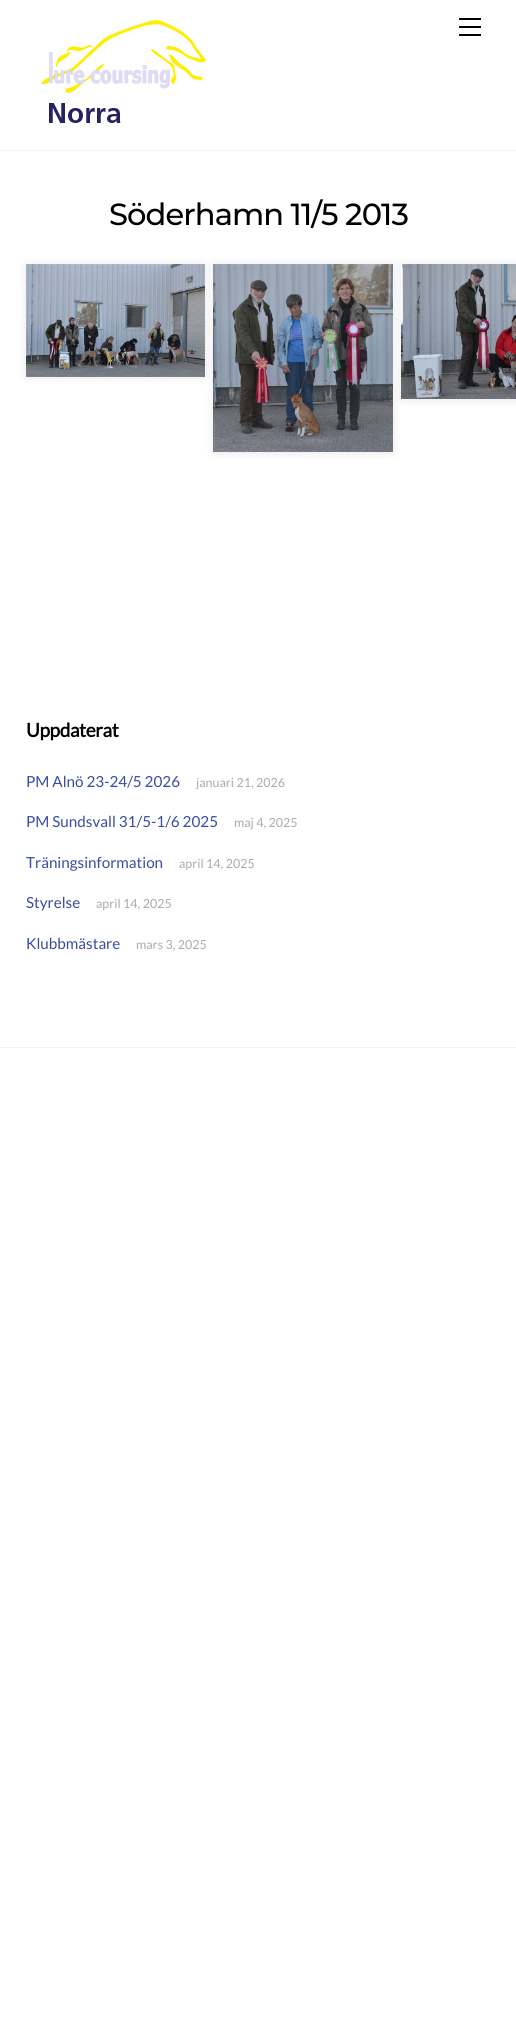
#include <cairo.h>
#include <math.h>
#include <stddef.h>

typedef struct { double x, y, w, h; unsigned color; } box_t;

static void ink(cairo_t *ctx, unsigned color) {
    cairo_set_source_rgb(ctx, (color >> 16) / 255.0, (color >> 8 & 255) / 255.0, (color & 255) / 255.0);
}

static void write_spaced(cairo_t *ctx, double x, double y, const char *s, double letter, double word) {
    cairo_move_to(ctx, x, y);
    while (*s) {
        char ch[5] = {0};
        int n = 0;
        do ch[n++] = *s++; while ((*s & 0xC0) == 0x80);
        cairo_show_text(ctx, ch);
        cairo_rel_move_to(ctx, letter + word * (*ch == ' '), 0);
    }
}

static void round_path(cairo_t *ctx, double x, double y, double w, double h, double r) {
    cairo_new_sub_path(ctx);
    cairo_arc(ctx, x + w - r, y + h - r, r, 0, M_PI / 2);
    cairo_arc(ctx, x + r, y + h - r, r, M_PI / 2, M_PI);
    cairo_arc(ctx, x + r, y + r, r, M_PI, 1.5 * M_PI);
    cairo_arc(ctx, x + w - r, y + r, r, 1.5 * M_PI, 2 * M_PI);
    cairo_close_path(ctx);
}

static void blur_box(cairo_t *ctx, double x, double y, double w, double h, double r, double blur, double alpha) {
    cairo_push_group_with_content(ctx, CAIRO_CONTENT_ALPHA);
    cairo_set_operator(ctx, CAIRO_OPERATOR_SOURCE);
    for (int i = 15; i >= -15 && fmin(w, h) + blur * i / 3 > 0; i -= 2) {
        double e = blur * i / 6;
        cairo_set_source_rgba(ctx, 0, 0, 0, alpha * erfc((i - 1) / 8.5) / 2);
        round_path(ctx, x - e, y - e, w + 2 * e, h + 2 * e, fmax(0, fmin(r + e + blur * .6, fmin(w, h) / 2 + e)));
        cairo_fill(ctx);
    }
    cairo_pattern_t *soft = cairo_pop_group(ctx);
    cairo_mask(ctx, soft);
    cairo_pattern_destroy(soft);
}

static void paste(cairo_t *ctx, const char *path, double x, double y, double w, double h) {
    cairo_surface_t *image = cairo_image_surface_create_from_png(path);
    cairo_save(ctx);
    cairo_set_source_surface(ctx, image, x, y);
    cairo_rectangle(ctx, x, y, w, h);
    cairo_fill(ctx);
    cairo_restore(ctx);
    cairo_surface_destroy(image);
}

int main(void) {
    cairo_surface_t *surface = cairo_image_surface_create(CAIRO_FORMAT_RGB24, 516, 2043);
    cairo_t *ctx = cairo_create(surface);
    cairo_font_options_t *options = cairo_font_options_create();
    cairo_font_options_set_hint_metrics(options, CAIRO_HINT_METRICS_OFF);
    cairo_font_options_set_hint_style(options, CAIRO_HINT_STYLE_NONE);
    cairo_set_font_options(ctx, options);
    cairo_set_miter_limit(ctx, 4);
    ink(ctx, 0xFFFFFF);
    cairo_paint(ctx);
    ink(ctx, 0xF2F2F2);
    cairo_rectangle(ctx, 0, 150, 516, 1);
    cairo_fill(ctx);
    paste(ctx, "media/1.png", 41, 20, 165, 103);
    {
        static const box_t items[] = {
            {459, 34, 22, 2, 0x000000},
            {459, 18, 22, 2, 0x000000},
            {459, 26, 22, 2, 0x000000},
        };
        for (size_t i = 0; i < sizeof items / sizeof *items; i++) {
            ink(ctx, items[i].color);
            cairo_rectangle(ctx, items[i].x, items[i].y, items[i].w, items[i].h);
            cairo_fill(ctx);
        }
    }
    cairo_select_font_face(ctx, "Montserrat Medium", CAIRO_FONT_SLANT_NORMAL, CAIRO_FONT_WEIGHT_NORMAL);
    cairo_set_font_size(ctx, 30.5);
    write_spaced(ctx, 109, 225, "Söderhamn 11/5 2013", -0.9, 0);
    ink(ctx, 0x000000);
    blur_box(ctx, 26, 265, 179, 113, 0, 4, 0.1);
    paste(ctx, "media/2.png", 26, 264, 179, 113);
    blur_box(ctx, 213, 265, 180, 188, 0, 4, 0.1);
    paste(ctx, "media/3.png", 213, 264, 180, 188);
    blur_box(ctx, 401, 265, 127, 135, 0, 4, 0.1);
    paste(ctx, "media/4.png", 401, 264, 115, 135);
    cairo_select_font_face(ctx, "Lato", CAIRO_FONT_SLANT_NORMAL, CAIRO_FONT_WEIGHT_BOLD);
    cairo_set_font_size(ctx, 19);
    ink(ctx, 0x000000);
    write_spaced(ctx, 26, 737, "Uppdaterat", -0.4, 0);
    cairo_select_font_face(ctx, "Lato", CAIRO_FONT_SLANT_NORMAL, CAIRO_FONT_WEIGHT_NORMAL);
    cairo_set_font_size(ctx, 15.25);
    ink(ctx, 0x394CA0);
    cairo_move_to(ctx, 26, 787);
    cairo_show_text(ctx, "PM Alnö 23-24/5 2026");
    cairo_set_font_size(ctx, 12.5);
    ink(ctx, 0xAAAAAA);
    cairo_move_to(ctx, 196, 787);
    cairo_show_text(ctx, "januari 21, 2026");
    cairo_set_font_size(ctx, 15.25);
    ink(ctx, 0x394CA0);
    cairo_move_to(ctx, 26, 827);
    cairo_show_text(ctx, "PM Sundsvall 31/5-1/6 2025");
    cairo_set_font_size(ctx, 12.5);
    ink(ctx, 0xAAAAAA);
    cairo_move_to(ctx, 234, 827);
    cairo_show_text(ctx, "maj 4, 2025");
    cairo_set_font_size(ctx, 15.25);
    ink(ctx, 0x394CA0);
    cairo_move_to(ctx, 26, 868);
    cairo_show_text(ctx, "Träningsinformation");
    cairo_set_font_size(ctx, 12.5);
    ink(ctx, 0xAAAAAA);
    cairo_move_to(ctx, 179, 868);
    cairo_show_text(ctx, "april 14, 2025");
    cairo_set_font_size(ctx, 15.25);
    ink(ctx, 0x394CA0);
    cairo_move_to(ctx, 26, 908);
    cairo_show_text(ctx, "Styrelse");
    cairo_set_font_size(ctx, 12.5);
    ink(ctx, 0xAAAAAA);
    cairo_move_to(ctx, 96, 908);
    cairo_show_text(ctx, "april 14, 2025");
    cairo_set_font_size(ctx, 15.25);
    ink(ctx, 0x394CA0);
    cairo_move_to(ctx, 26, 949);
    cairo_show_text(ctx, "Klubbmästare");
    cairo_set_font_size(ctx, 12.5);
    ink(ctx, 0xAAAAAA);
    cairo_move_to(ctx, 136, 949);
    cairo_show_text(ctx, "mars 3, 2025");
    ink(ctx, 0xF2F2F2);
    cairo_rectangle(ctx, 0, 1047, 516, 1);
    cairo_fill(ctx);
    cairo_surface_write_to_png(surface, "image.png");
    cairo_font_options_destroy(options);
    cairo_destroy(ctx);
    cairo_surface_destroy(surface);
    return 0;
}
